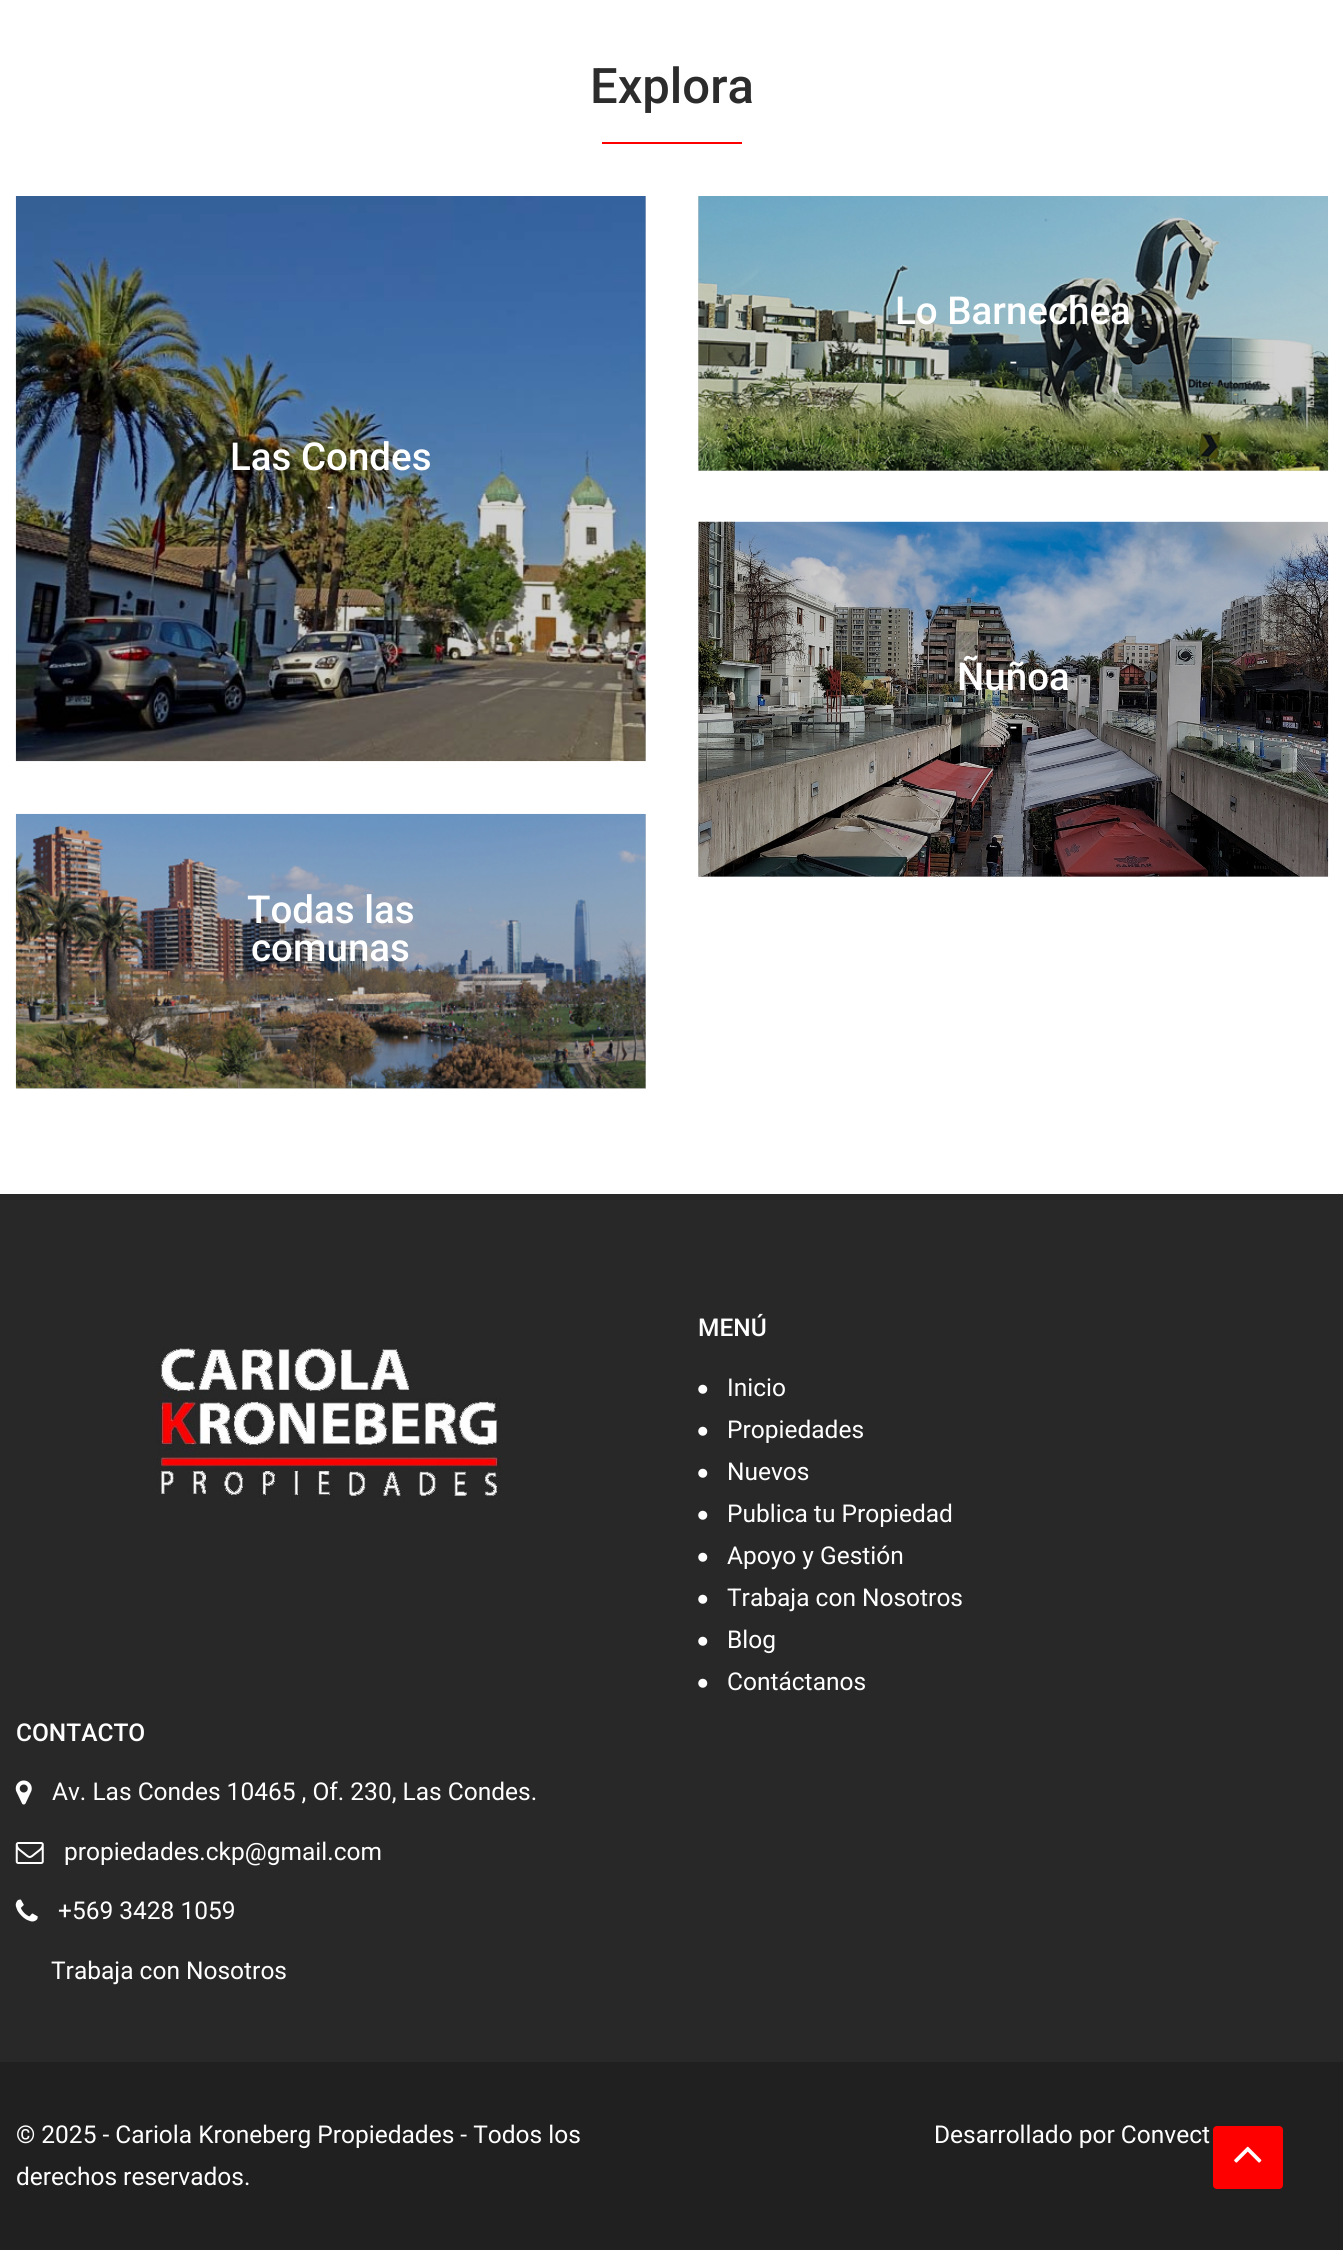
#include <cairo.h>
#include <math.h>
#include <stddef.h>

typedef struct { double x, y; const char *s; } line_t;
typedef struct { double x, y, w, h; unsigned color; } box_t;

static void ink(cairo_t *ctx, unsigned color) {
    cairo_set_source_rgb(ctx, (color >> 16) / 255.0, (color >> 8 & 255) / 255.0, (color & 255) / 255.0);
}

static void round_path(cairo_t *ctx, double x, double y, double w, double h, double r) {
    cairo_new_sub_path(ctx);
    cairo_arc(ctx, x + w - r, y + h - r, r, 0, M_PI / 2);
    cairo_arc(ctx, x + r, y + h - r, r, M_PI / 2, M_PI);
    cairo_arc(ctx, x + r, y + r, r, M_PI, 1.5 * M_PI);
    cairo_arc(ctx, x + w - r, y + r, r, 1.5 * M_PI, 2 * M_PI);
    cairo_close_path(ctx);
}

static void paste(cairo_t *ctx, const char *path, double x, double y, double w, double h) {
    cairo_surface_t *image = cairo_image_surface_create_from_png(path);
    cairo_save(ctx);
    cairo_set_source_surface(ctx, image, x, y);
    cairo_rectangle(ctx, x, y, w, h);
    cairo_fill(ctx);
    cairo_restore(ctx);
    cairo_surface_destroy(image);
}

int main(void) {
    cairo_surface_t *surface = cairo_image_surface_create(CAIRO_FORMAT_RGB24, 1343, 2250);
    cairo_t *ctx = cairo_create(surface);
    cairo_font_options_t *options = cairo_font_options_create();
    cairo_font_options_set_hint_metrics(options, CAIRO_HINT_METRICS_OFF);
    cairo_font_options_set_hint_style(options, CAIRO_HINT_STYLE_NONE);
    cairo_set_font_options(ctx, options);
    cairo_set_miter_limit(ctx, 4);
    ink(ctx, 0xFFFFFF);
    cairo_paint(ctx);
    {
        static const box_t items[] = {
            {16, 814, 630, 275, 0xD1D1D1},
            {698, 522, 630, 355, 0xD1D1D1},
            {698, 196, 630, 275, 0xD1D1D1},
            {645, 196, 1, 565, 0xD1D1D1},
        };
        for (size_t i = 0; i < sizeof items / sizeof *items; i++) {
            ink(ctx, items[i].color);
            cairo_rectangle(ctx, items[i].x, items[i].y, items[i].w, items[i].h);
            cairo_fill(ctx);
        }
    }
    cairo_select_font_face(ctx, "Roboto Medium", CAIRO_FONT_SLANT_NORMAL, CAIRO_FONT_WEIGHT_NORMAL);
    cairo_set_font_size(ctx, 49);
    ink(ctx, 0x2C2C2C);
    cairo_move_to(ctx, 590, 103);
    cairo_show_text(ctx, "Explora");
    ink(ctx, 0xFF0000);
    cairo_rectangle(ctx, 602, 142, 140, 2);
    cairo_fill(ctx);
    paste(ctx, "media/1.png", 698, 196, 631, 275);
    cairo_set_font_size(ctx, 38.5);
    ink(ctx, 0xFFFFFF);
    cairo_move_to(ctx, 895, 324);
    cairo_show_text(ctx, "Lo Barnechea");
    cairo_select_font_face(ctx, "Roboto", CAIRO_FONT_SLANT_NORMAL, CAIRO_FONT_WEIGHT_NORMAL);
    cairo_set_font_size(ctx, 24.5);
    cairo_move_to(ctx, 1010, 370);
    cairo_show_text(ctx, "-");
    paste(ctx, "media/2.png", 15, 196, 631, 566);
    cairo_select_font_face(ctx, "Roboto Medium", CAIRO_FONT_SLANT_NORMAL, CAIRO_FONT_WEIGHT_NORMAL);
    cairo_set_font_size(ctx, 38.5);
    cairo_move_to(ctx, 230, 470);
    cairo_show_text(ctx, "Las Condes");
    cairo_select_font_face(ctx, "Roboto", CAIRO_FONT_SLANT_NORMAL, CAIRO_FONT_WEIGHT_NORMAL);
    cairo_set_font_size(ctx, 24.5);
    cairo_move_to(ctx, 327, 515);
    cairo_show_text(ctx, "-");
    paste(ctx, "media/3.png", 698, 521, 631, 356);
    cairo_select_font_face(ctx, "Roboto Medium", CAIRO_FONT_SLANT_NORMAL, CAIRO_FONT_WEIGHT_NORMAL);
    cairo_set_font_size(ctx, 38.5);
    cairo_move_to(ctx, 957, 690);
    cairo_show_text(ctx, "Ñuñoa");
    cairo_select_font_face(ctx, "Roboto", CAIRO_FONT_SLANT_NORMAL, CAIRO_FONT_WEIGHT_NORMAL);
    cairo_set_font_size(ctx, 24.5);
    cairo_move_to(ctx, 1010, 735);
    cairo_show_text(ctx, "-");
    paste(ctx, "media/4.png", 15, 813, 631, 276);
    cairo_select_font_face(ctx, "Roboto Medium", CAIRO_FONT_SLANT_NORMAL, CAIRO_FONT_WEIGHT_NORMAL);
    cairo_set_font_size(ctx, 38.5);
    cairo_move_to(ctx, 247, 923);
    cairo_show_text(ctx, "Todas las");
    cairo_move_to(ctx, 251, 961);
    cairo_show_text(ctx, "comunas");
    cairo_select_font_face(ctx, "Roboto", CAIRO_FONT_SLANT_NORMAL, CAIRO_FONT_WEIGHT_NORMAL);
    cairo_set_font_size(ctx, 24.5);
    cairo_move_to(ctx, 327, 1007);
    cairo_show_text(ctx, "-");
    ink(ctx, 0x282828);
    cairo_rectangle(ctx, 0, 1194, 1343, 868);
    cairo_fill(ctx);
    paste(ctx, "media/5.png", 156, 1348, 345, 152);
    cairo_select_font_face(ctx, "Roboto Medium", CAIRO_FONT_SLANT_NORMAL, CAIRO_FONT_WEIGHT_NORMAL);
    ink(ctx, 0xFFFFFF);
    cairo_move_to(ctx, 698, 1336);
    cairo_show_text(ctx, "MENÚ");
    paste(ctx, "media/6.png", 698, 1384, 10, 10);
    cairo_select_font_face(ctx, "Roboto", CAIRO_FONT_SLANT_NORMAL, CAIRO_FONT_WEIGHT_NORMAL);
    cairo_move_to(ctx, 727, 1396);
    cairo_show_text(ctx, "Inicio");
    paste(ctx, "media/6.png", 698, 1426, 10, 10);
    cairo_move_to(ctx, 727, 1438);
    cairo_show_text(ctx, "Propiedades");
    paste(ctx, "media/6.png", 698, 1468, 10, 10);
    cairo_move_to(ctx, 727, 1480);
    cairo_show_text(ctx, "Nuevos");
    paste(ctx, "media/6.png", 698, 1510, 10, 10);
    cairo_move_to(ctx, 727, 1522);
    cairo_show_text(ctx, "Publica tu Propiedad");
    paste(ctx, "media/6.png", 698, 1552, 10, 10);
    cairo_move_to(ctx, 727, 1564);
    cairo_show_text(ctx, "Apoyo y Gestión");
    paste(ctx, "media/6.png", 698, 1594, 10, 10);
    cairo_move_to(ctx, 727, 1606);
    cairo_show_text(ctx, "Trabaja con Nosotros");
    paste(ctx, "media/6.png", 698, 1636, 10, 10);
    cairo_move_to(ctx, 727, 1648);
    cairo_show_text(ctx, "Blog");
    paste(ctx, "media/6.png", 698, 1678, 10, 10);
    cairo_move_to(ctx, 727, 1690);
    cairo_show_text(ctx, "Contáctanos");
    cairo_select_font_face(ctx, "Roboto Medium", CAIRO_FONT_SLANT_NORMAL, CAIRO_FONT_WEIGHT_NORMAL);
    cairo_move_to(ctx, 16, 1741);
    cairo_show_text(ctx, "CONTACTO");
    paste(ctx, "media/7.png", 15, 1780, 17, 25);
    cairo_select_font_face(ctx, "Roboto", CAIRO_FONT_SLANT_NORMAL, CAIRO_FONT_WEIGHT_NORMAL);
    cairo_move_to(ctx, 52, 1800);
    cairo_show_text(ctx, "Av. Las Condes 10465 , Of. 230, Las Condes.");
    paste(ctx, "media/8.png", 15, 1842, 29, 22);
    cairo_move_to(ctx, 64, 1860);
    cairo_show_text(ctx, "propiedades.ckp@gmail.com");
    paste(ctx, "media/9.png", 15, 1899, 23, 23);
    cairo_move_to(ctx, 58, 1919);
    cairo_show_text(ctx, "+569 3428 1059");
    cairo_move_to(ctx, 51, 1979);
    cairo_show_text(ctx, "Trabaja con Nosotros");
    ink(ctx, 0x202020);
    cairo_rectangle(ctx, 0, 2062, 1343, 188);
    cairo_fill(ctx);
    ink(ctx, 0xFFFFFF);
    {
        static const line_t items[] = {
            {16, 2143, "© 2025 - Cariola Kroneberg Propiedades - Todos los"},
            {16, 2185, "derechos reservados."},
            {934, 2143, "Desarrollado por Convect"},
        };
        for (size_t i = 0; i < sizeof items / sizeof *items; i++) {
            cairo_move_to(ctx, items[i].x, items[i].y);
            cairo_show_text(ctx, items[i].s);
        }
    }
    ink(ctx, 0xFF0000);
    round_path(ctx, 1213, 2126, 70, 63, 4);
    cairo_fill(ctx);
    paste(ctx, "media/10.png", 1234, 2146, 28, 17);
    cairo_surface_write_to_png(surface, "image.png");
    cairo_font_options_destroy(options);
    cairo_destroy(ctx);
    cairo_surface_destroy(surface);
    return 0;
}
